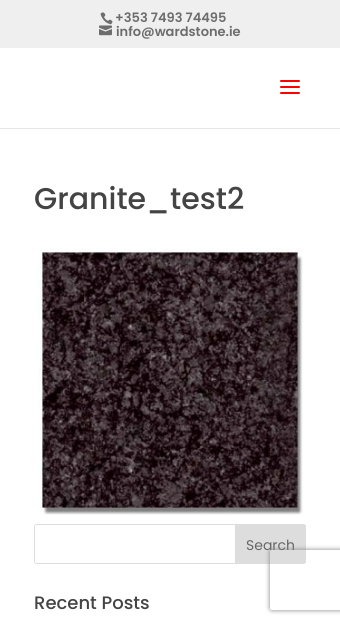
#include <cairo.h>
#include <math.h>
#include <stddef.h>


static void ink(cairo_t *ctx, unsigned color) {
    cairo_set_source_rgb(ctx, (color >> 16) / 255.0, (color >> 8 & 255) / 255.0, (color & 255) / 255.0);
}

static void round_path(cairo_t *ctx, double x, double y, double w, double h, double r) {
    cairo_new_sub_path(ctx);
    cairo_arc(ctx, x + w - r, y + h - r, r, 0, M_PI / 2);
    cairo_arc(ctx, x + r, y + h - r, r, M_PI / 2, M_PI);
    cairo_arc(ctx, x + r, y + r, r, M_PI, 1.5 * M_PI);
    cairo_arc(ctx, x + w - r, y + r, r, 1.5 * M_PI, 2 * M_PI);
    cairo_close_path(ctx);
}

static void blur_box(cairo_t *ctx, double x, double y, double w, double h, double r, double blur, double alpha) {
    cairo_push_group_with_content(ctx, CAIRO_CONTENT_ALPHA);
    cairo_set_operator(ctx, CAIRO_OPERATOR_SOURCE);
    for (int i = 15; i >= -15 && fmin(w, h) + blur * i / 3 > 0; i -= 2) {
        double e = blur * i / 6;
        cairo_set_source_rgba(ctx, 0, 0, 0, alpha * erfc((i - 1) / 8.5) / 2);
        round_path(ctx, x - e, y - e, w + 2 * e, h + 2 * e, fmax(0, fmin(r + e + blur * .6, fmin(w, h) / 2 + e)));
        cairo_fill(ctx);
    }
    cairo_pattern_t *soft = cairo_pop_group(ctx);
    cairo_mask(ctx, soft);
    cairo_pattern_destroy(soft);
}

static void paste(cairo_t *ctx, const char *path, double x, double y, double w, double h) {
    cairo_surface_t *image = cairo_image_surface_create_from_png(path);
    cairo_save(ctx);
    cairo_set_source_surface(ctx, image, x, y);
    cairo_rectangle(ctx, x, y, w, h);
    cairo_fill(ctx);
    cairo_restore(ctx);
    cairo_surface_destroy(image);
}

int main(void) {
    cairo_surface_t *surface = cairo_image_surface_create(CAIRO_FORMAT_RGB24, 340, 624);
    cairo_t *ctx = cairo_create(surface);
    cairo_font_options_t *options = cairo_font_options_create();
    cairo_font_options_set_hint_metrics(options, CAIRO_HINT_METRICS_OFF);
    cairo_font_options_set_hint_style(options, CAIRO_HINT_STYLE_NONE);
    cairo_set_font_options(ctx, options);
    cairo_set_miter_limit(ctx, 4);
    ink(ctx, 0xFFFFFF);
    cairo_paint(ctx);
    ink(ctx, 0xEFEFEF);
    cairo_rectangle(ctx, 0, 0, 340, 48);
    cairo_fill(ctx);
    paste(ctx, "media/1.png", 100, 12, 13, 13);
    cairo_select_font_face(ctx, "Poppins SemiBold", CAIRO_FONT_SLANT_NORMAL, CAIRO_FONT_WEIGHT_NORMAL);
    cairo_set_font_size(ctx, 13);
    ink(ctx, 0x6D6D6D);
    cairo_move_to(ctx, 115, 22);
    cairo_show_text(ctx, "+353 7493 74495");
    paste(ctx, "media/2.png", 99, 25, 13, 11);
    cairo_move_to(ctx, 116, 36);
    cairo_show_text(ctx, "info@wardstone.ie");
    ink(ctx, 0xE6E6E6);
    cairo_rectangle(ctx, 0, 128, 340, 1);
    cairo_fill(ctx);
    paste(ctx, "media/3.png", 280, 80, 20, 14);
    cairo_select_font_face(ctx, "Poppins Medium", CAIRO_FONT_SLANT_NORMAL, CAIRO_FONT_WEIGHT_NORMAL);
    cairo_set_font_size(ctx, 30);
    ink(ctx, 0x444444);
    cairo_move_to(ctx, 34, 209);
    cairo_show_text(ctx, "Granite_test2");
    paste(ctx, "media/4.png", 38, 248, 265, 267);
    round_path(ctx, 34.5, 524.5, 271, 39, 2.5);
    ink(ctx, 0xDDDDDD);
    cairo_set_line_width(ctx, 1);
    cairo_stroke(ctx);
    cairo_new_path(ctx);
    cairo_move_to(ctx, 235.5, 524.5);
    cairo_line_to(ctx, 303, 524.5);
    cairo_curve_to(ctx, 304.5, 524.5, 305.5, 525.5, 305.5, 527);
    cairo_line_to(ctx, 305.5, 561);
    cairo_curve_to(ctx, 305.5, 562.5, 304.5, 563.5, 303, 563.5);
    cairo_line_to(ctx, 235.5, 563.5);
    cairo_close_path(ctx);
    cairo_fill_preserve(ctx);
    cairo_stroke(ctx);
    cairo_select_font_face(ctx, "Poppins", CAIRO_FONT_SLANT_NORMAL, CAIRO_FONT_WEIGHT_NORMAL);
    cairo_set_font_size(ctx, 14);
    ink(ctx, 0x666666);
    cairo_move_to(ctx, 246, 550);
    cairo_show_text(ctx, "Search");
    cairo_select_font_face(ctx, "Poppins Medium", CAIRO_FONT_SLANT_NORMAL, CAIRO_FONT_WEIGHT_NORMAL);
    cairo_set_font_size(ctx, 18);
    ink(ctx, 0x444444);
    cairo_move_to(ctx, 34, 609);
    cairo_show_text(ctx, "Recent Posts");
    cairo_save(ctx);
    cairo_set_fill_rule(ctx, CAIRO_FILL_RULE_EVEN_ODD);
    cairo_new_path(ctx);
    cairo_move_to(ctx, 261, 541);
    cairo_line_to(ctx, 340, 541);
    cairo_line_to(ctx, 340, 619);
    cairo_line_to(ctx, 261, 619);
    cairo_close_path(ctx);
    cairo_move_to(ctx, 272, 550);
    cairo_line_to(ctx, 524, 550);
    cairo_curve_to(ctx, 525, 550, 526, 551, 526, 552);
    cairo_line_to(ctx, 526, 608);
    cairo_curve_to(ctx, 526, 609, 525, 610, 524, 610);
    cairo_line_to(ctx, 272, 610);
    cairo_curve_to(ctx, 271, 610, 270, 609, 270, 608);
    cairo_line_to(ctx, 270, 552);
    cairo_curve_to(ctx, 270, 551, 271, 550, 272, 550);
    cairo_close_path(ctx);
    cairo_clip(ctx);
    ink(ctx, 0x808080);
    blur_box(ctx, 270, 550, 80, 60, 2, 2.5, 1);
    cairo_restore(ctx);
    cairo_surface_write_to_png(surface, "image.png");
    cairo_font_options_destroy(options);
    cairo_destroy(ctx);
    cairo_surface_destroy(surface);
    return 0;
}
